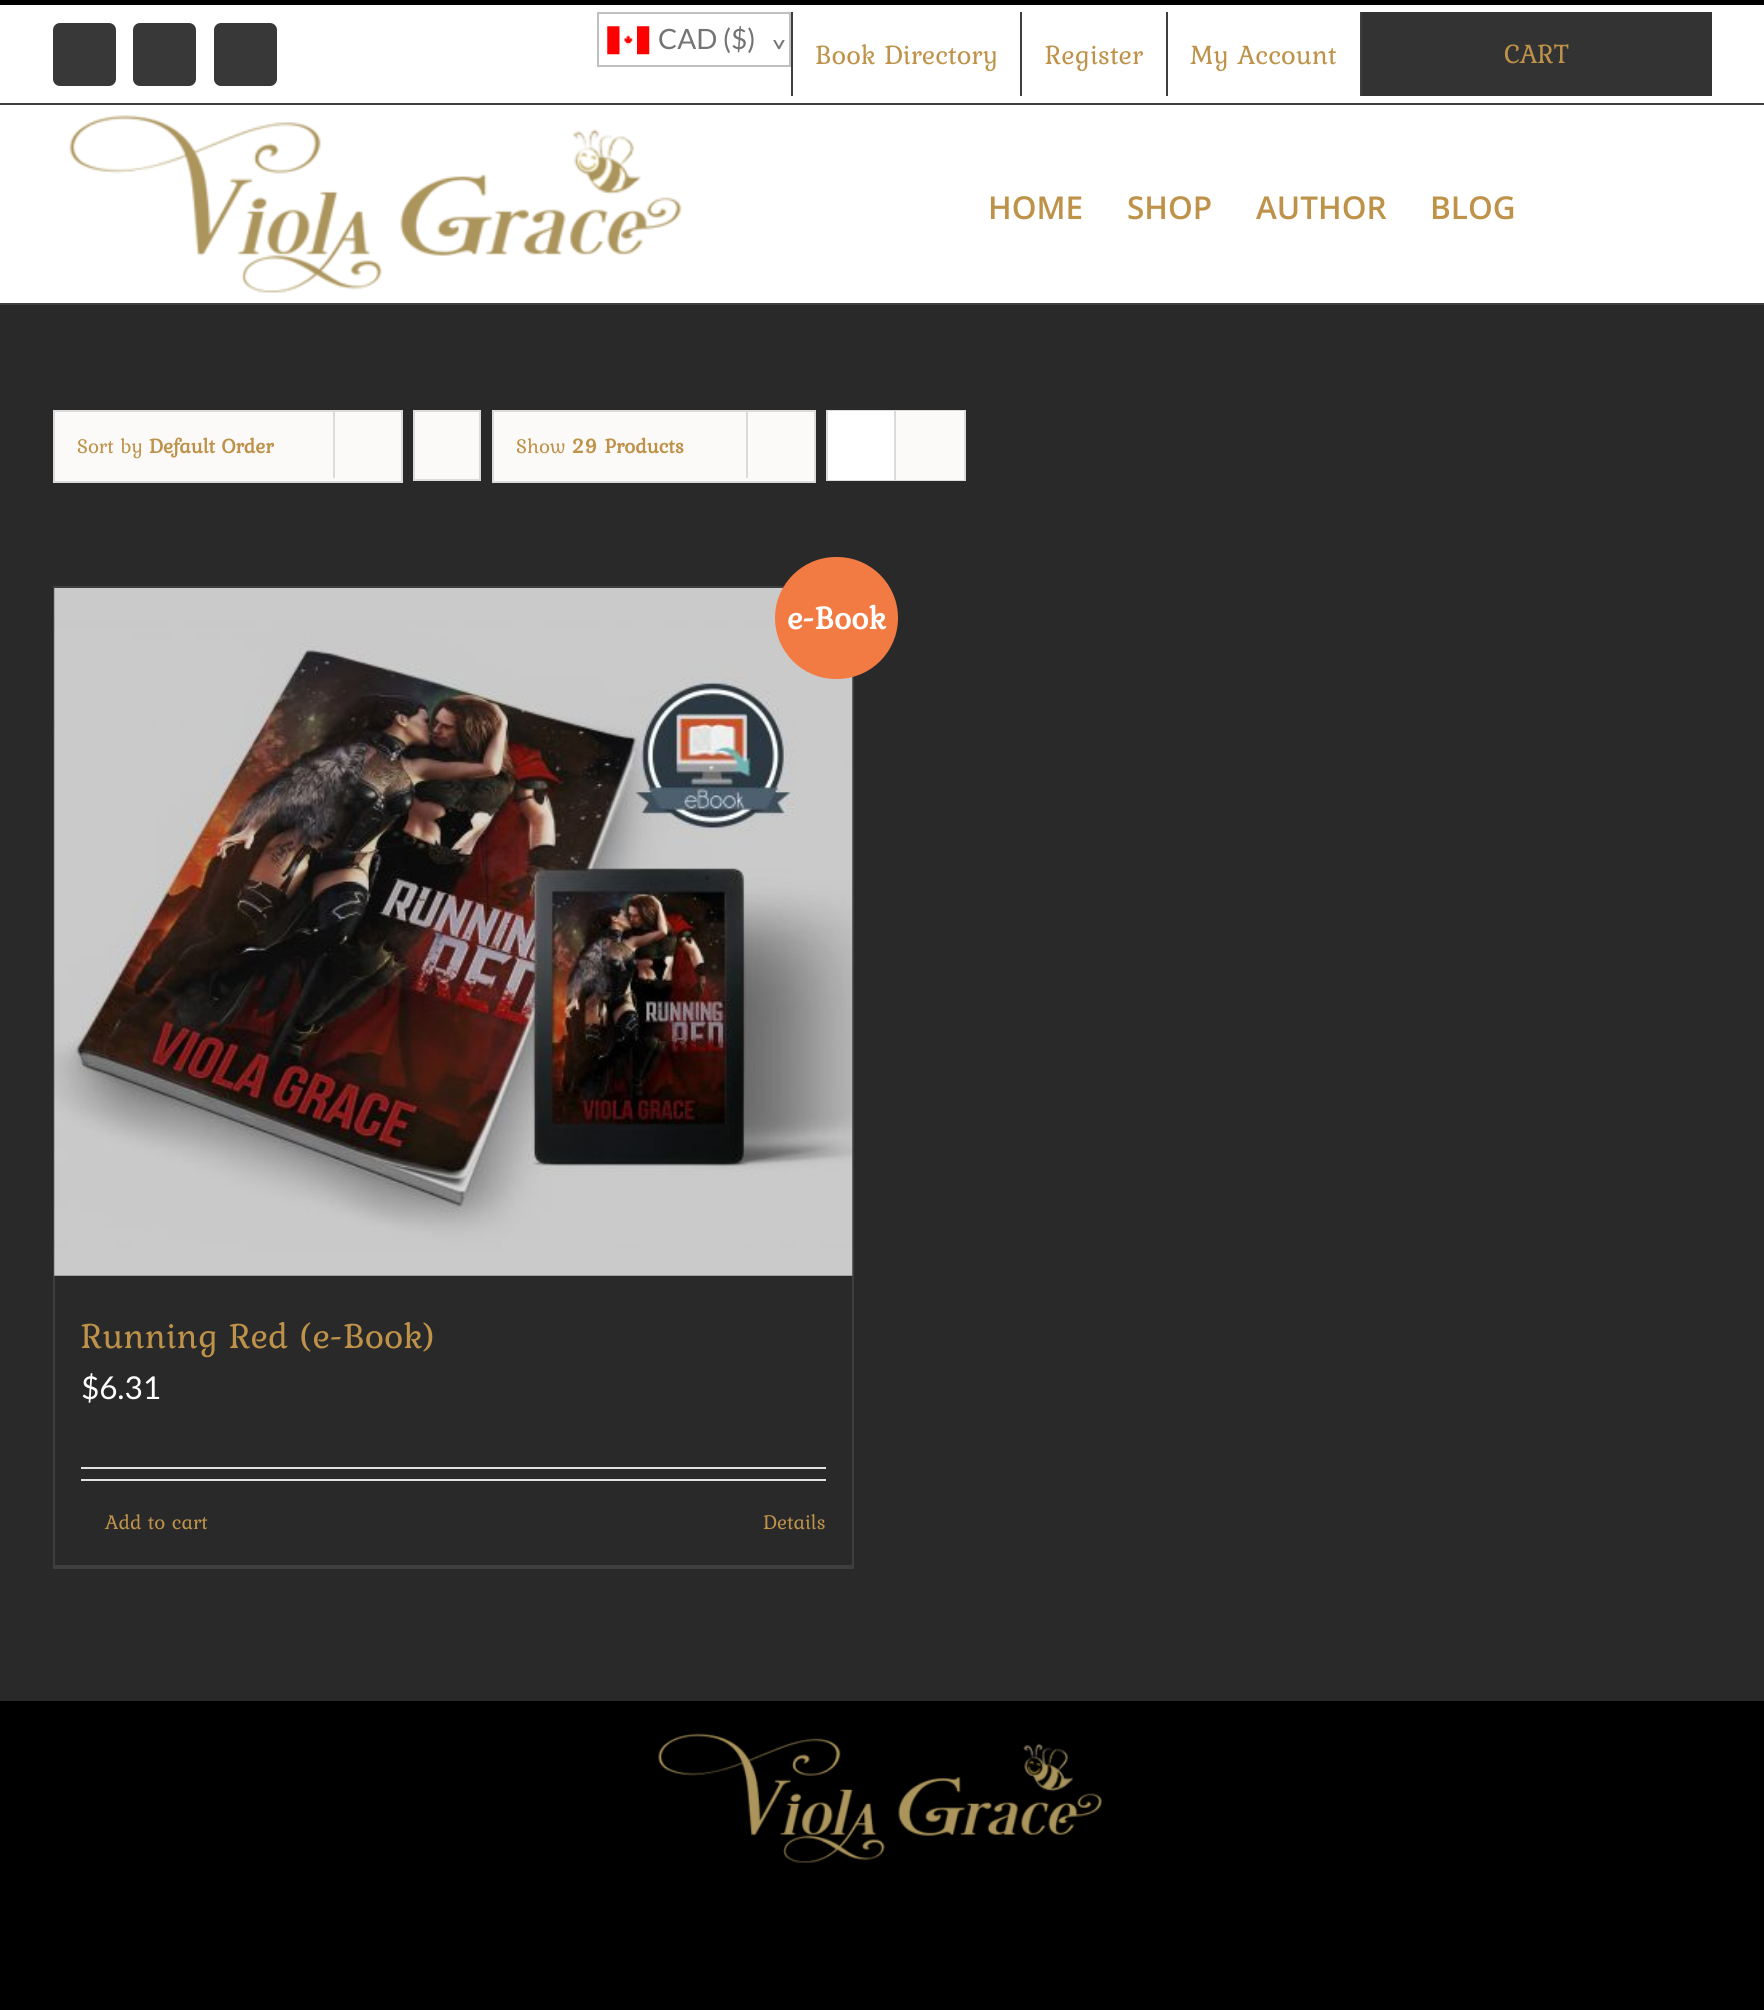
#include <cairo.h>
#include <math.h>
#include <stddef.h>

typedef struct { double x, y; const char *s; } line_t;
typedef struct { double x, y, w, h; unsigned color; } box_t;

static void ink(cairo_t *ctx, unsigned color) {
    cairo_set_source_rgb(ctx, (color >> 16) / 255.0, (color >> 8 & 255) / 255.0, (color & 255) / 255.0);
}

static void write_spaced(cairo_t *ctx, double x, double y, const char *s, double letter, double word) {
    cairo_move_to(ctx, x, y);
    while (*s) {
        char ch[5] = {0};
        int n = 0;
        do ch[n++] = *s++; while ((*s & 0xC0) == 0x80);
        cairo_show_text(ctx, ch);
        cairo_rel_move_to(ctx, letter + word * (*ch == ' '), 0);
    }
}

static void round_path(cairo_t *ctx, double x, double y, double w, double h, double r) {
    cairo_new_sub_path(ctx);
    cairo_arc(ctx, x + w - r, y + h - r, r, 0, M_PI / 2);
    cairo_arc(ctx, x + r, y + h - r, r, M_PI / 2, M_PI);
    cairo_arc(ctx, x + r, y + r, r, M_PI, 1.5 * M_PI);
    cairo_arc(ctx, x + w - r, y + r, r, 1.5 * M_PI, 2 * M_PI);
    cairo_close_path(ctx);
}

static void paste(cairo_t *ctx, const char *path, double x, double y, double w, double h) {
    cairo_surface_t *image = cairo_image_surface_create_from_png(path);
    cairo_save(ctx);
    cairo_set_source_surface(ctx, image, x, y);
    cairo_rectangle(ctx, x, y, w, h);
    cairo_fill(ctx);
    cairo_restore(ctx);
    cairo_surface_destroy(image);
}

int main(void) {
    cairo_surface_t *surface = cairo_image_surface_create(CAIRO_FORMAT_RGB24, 1764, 2010);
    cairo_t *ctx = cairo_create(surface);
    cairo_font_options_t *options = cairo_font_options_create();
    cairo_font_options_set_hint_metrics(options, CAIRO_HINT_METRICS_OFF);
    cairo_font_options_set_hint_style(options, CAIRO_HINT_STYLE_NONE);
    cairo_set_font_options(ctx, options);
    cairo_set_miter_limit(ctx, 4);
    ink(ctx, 0x29292A);
    cairo_paint(ctx);
    {
        static const box_t items[] = {
            {0, 5, 1764, 98, 0xFFFFFF},
            {0, 0, 1764, 5, 0x000000},
            {0, 103, 1764, 2, 0x3E3E3E},
        };
        for (size_t i = 0; i < sizeof items / sizeof *items; i++) {
            ink(ctx, items[i].color);
            cairo_rectangle(ctx, items[i].x, items[i].y, items[i].w, items[i].h);
            cairo_fill(ctx);
        }
    }
    ink(ctx, 0x383838);
    round_path(ctx, 54, 24, 61, 61, 6);
    cairo_fill_preserve(ctx);
    cairo_stroke(ctx);
    round_path(ctx, 134, 24, 61, 61, 6);
    cairo_fill_preserve(ctx);
    cairo_stroke(ctx);
    round_path(ctx, 215, 24, 61, 61, 6);
    cairo_fill_preserve(ctx);
    cairo_stroke(ctx);
    cairo_rectangle(ctx, 598, 13, 192, 53);
    ink(ctx, 0xC0C0C0);
    cairo_stroke(ctx);
    paste(ctx, "media/1.png", 607, 26, 43, 29);
    cairo_select_font_face(ctx, "Lato", CAIRO_FONT_SLANT_NORMAL, CAIRO_FONT_WEIGHT_NORMAL);
    cairo_set_font_size(ctx, 28);
    ink(ctx, 0x747474);
    cairo_move_to(ctx, 658, 49);
    cairo_show_text(ctx, "CAD ($)");
    cairo_save(ctx);
    cairo_translate(ctx, 787, 29);
    cairo_rotate(ctx, 180 * M_PI / 180);
    write_spaced(ctx, 0, 0, "^", 13, 0);
    cairo_restore(ctx);
    ink(ctx, 0x3E3E3E);
    cairo_rectangle(ctx, 791, 12, 2, 84);
    cairo_fill(ctx);
    cairo_select_font_face(ctx, "Kurale", CAIRO_FONT_SLANT_NORMAL, CAIRO_FONT_WEIGHT_NORMAL);
    ink(ctx, 0xBE9249);
    cairo_move_to(ctx, 815, 64);
    cairo_show_text(ctx, "Book Directory");
    ink(ctx, 0x3E3E3E);
    cairo_rectangle(ctx, 1020, 12, 2, 84);
    cairo_fill(ctx);
    ink(ctx, 0xBE9249);
    cairo_move_to(ctx, 1045, 64);
    cairo_show_text(ctx, "Register");
    ink(ctx, 0x3E3E3E);
    cairo_rectangle(ctx, 1166, 12, 2, 84);
    cairo_fill(ctx);
    ink(ctx, 0xBE9249);
    cairo_move_to(ctx, 1190, 64);
    cairo_show_text(ctx, "My Account");
    ink(ctx, 0x3E3E3E);
    cairo_rectangle(ctx, 1360, 12, 2, 84);
    cairo_fill(ctx);
    ink(ctx, 0x333333);
    cairo_rectangle(ctx, 1362, 12, 350, 84);
    cairo_fill(ctx);
    ink(ctx, 0xBE9249);
    cairo_move_to(ctx, 1504, 63);
    cairo_show_text(ctx, "CART");
    ink(ctx, 0xFFFFFF);
    cairo_rectangle(ctx, 0, 105, 1764, 198);
    cairo_fill(ctx);
    ink(ctx, 0x3E3E3E);
    cairo_rectangle(ctx, 0, 303, 1764, 2);
    cairo_fill(ctx);
    paste(ctx, "media/2.png", 69, 115, 613, 178);
    cairo_select_font_face(ctx, "Open Sans SemiBold", CAIRO_FONT_SLANT_NORMAL, CAIRO_FONT_WEIGHT_NORMAL);
    cairo_set_font_size(ctx, 31.5);
    ink(ctx, 0xBE9249);
    {
        static const line_t items[] = {
            {988, 219, "HOME"},
            {1127, 219, "SHOP"},
            {1256, 219, "AUTHOR"},
            {1430, 219, "BLOG"},
        };
        for (size_t i = 0; i < sizeof items / sizeof *items; i++) {
            cairo_move_to(ctx, items[i].x, items[i].y);
            cairo_show_text(ctx, items[i].s);
        }
    }
    ink(ctx, 0xFBFAF9);
    cairo_rectangle(ctx, 54, 411, 348, 71);
    cairo_fill_preserve(ctx);
    ink(ctx, 0xDBDBDB);
    cairo_stroke(ctx);
    cairo_select_font_face(ctx, "Kurale", CAIRO_FONT_SLANT_NORMAL, CAIRO_FONT_WEIGHT_NORMAL);
    cairo_set_font_size(ctx, 21);
    ink(ctx, 0xBE9249);
    cairo_move_to(ctx, 77, 453);
    cairo_show_text(ctx, "Sort by");
    cairo_select_font_face(ctx, "Kurale", CAIRO_FONT_SLANT_NORMAL, CAIRO_FONT_WEIGHT_BOLD);
    cairo_move_to(ctx, 149, 453);
    cairo_show_text(ctx, "Default Order");
    ink(ctx, 0xDBDBDB);
    cairo_rectangle(ctx, 333, 410, 2, 68);
    cairo_fill(ctx);
    ink(ctx, 0xFBFAF9);
    cairo_rectangle(ctx, 414, 411, 66, 69);
    cairo_fill_preserve(ctx);
    ink(ctx, 0xDBDBDB);
    cairo_stroke(ctx);
    ink(ctx, 0xFBFAF9);
    cairo_rectangle(ctx, 493, 411, 322, 71);
    cairo_fill_preserve(ctx);
    ink(ctx, 0xDBDBDB);
    cairo_stroke(ctx);
    cairo_select_font_face(ctx, "Kurale", CAIRO_FONT_SLANT_NORMAL, CAIRO_FONT_WEIGHT_NORMAL);
    ink(ctx, 0xBE9249);
    cairo_move_to(ctx, 516, 453);
    cairo_show_text(ctx, "Show");
    cairo_select_font_face(ctx, "Kurale", CAIRO_FONT_SLANT_NORMAL, CAIRO_FONT_WEIGHT_BOLD);
    cairo_move_to(ctx, 572, 453);
    cairo_show_text(ctx, "29 Products");
    ink(ctx, 0xDBDBDB);
    cairo_rectangle(ctx, 746, 410, 2, 68);
    cairo_fill(ctx);
    cairo_rectangle(ctx, 827, 411, 138, 69);
    cairo_stroke(ctx);
    {
        static const box_t items[] = {
            {828, 411, 66, 69, 0xFFFFFF},
            {894, 411, 2, 69, 0xDBDBDB},
            {896, 411, 68, 69, 0xFBFAF9},
            {53, 586, 732, 2, 0x3E3E3E},
            {852, 676, 2, 892, 0x3E3E3E},
            {53, 1565, 801, 4, 0x3E3E3E},
            {53, 586, 2, 982, 0x3E3E3E},
        };
        for (size_t i = 0; i < sizeof items / sizeof *items; i++) {
            ink(ctx, items[i].color);
            cairo_rectangle(ctx, items[i].x, items[i].y, items[i].w, items[i].h);
            cairo_fill(ctx);
        }
    }
    paste(ctx, "media/3.png", 54, 588, 799, 688);
    ink(ctx, 0xF27B44);
    round_path(ctx, 775, 557, 123, 122, 61);
    cairo_fill(ctx);
    cairo_set_font_size(ctx, 33);
    ink(ctx, 0xFFFFFF);
    cairo_move_to(ctx, 787, 629);
    cairo_show_text(ctx, "e-Book");
    cairo_select_font_face(ctx, "Kurale", CAIRO_FONT_SLANT_NORMAL, CAIRO_FONT_WEIGHT_NORMAL);
    cairo_set_font_size(ctx, 36.75);
    ink(ctx, 0xBE9249);
    cairo_move_to(ctx, 81, 1348);
    cairo_show_text(ctx, "Running Red (e-Book)");
    cairo_select_font_face(ctx, "Lato", CAIRO_FONT_SLANT_NORMAL, CAIRO_FONT_WEIGHT_NORMAL);
    cairo_set_font_size(ctx, 31.5);
    ink(ctx, 0xFFFFFF);
    cairo_move_to(ctx, 81, 1399);
    cairo_show_text(ctx, "$6.31");
    ink(ctx, 0xE2E2E2);
    cairo_rectangle(ctx, 81, 1467, 745, 2);
    cairo_fill(ctx);
    cairo_rectangle(ctx, 81, 1479, 745, 2);
    cairo_fill(ctx);
    cairo_select_font_face(ctx, "Kurale", CAIRO_FONT_SLANT_NORMAL, CAIRO_FONT_WEIGHT_NORMAL);
    cairo_set_font_size(ctx, 21);
    ink(ctx, 0xBE9249);
    cairo_move_to(ctx, 105, 1529);
    cairo_show_text(ctx, "Add to cart");
    cairo_move_to(ctx, 763, 1529);
    cairo_show_text(ctx, "Details");
    ink(ctx, 0x000000);
    cairo_rectangle(ctx, 0, 1701, 1764, 309);
    cairo_fill(ctx);
    paste(ctx, "media/4.png", 658, 1733, 444, 130);
    cairo_surface_write_to_png(surface, "image.png");
    cairo_font_options_destroy(options);
    cairo_destroy(ctx);
    cairo_surface_destroy(surface);
    return 0;
}
